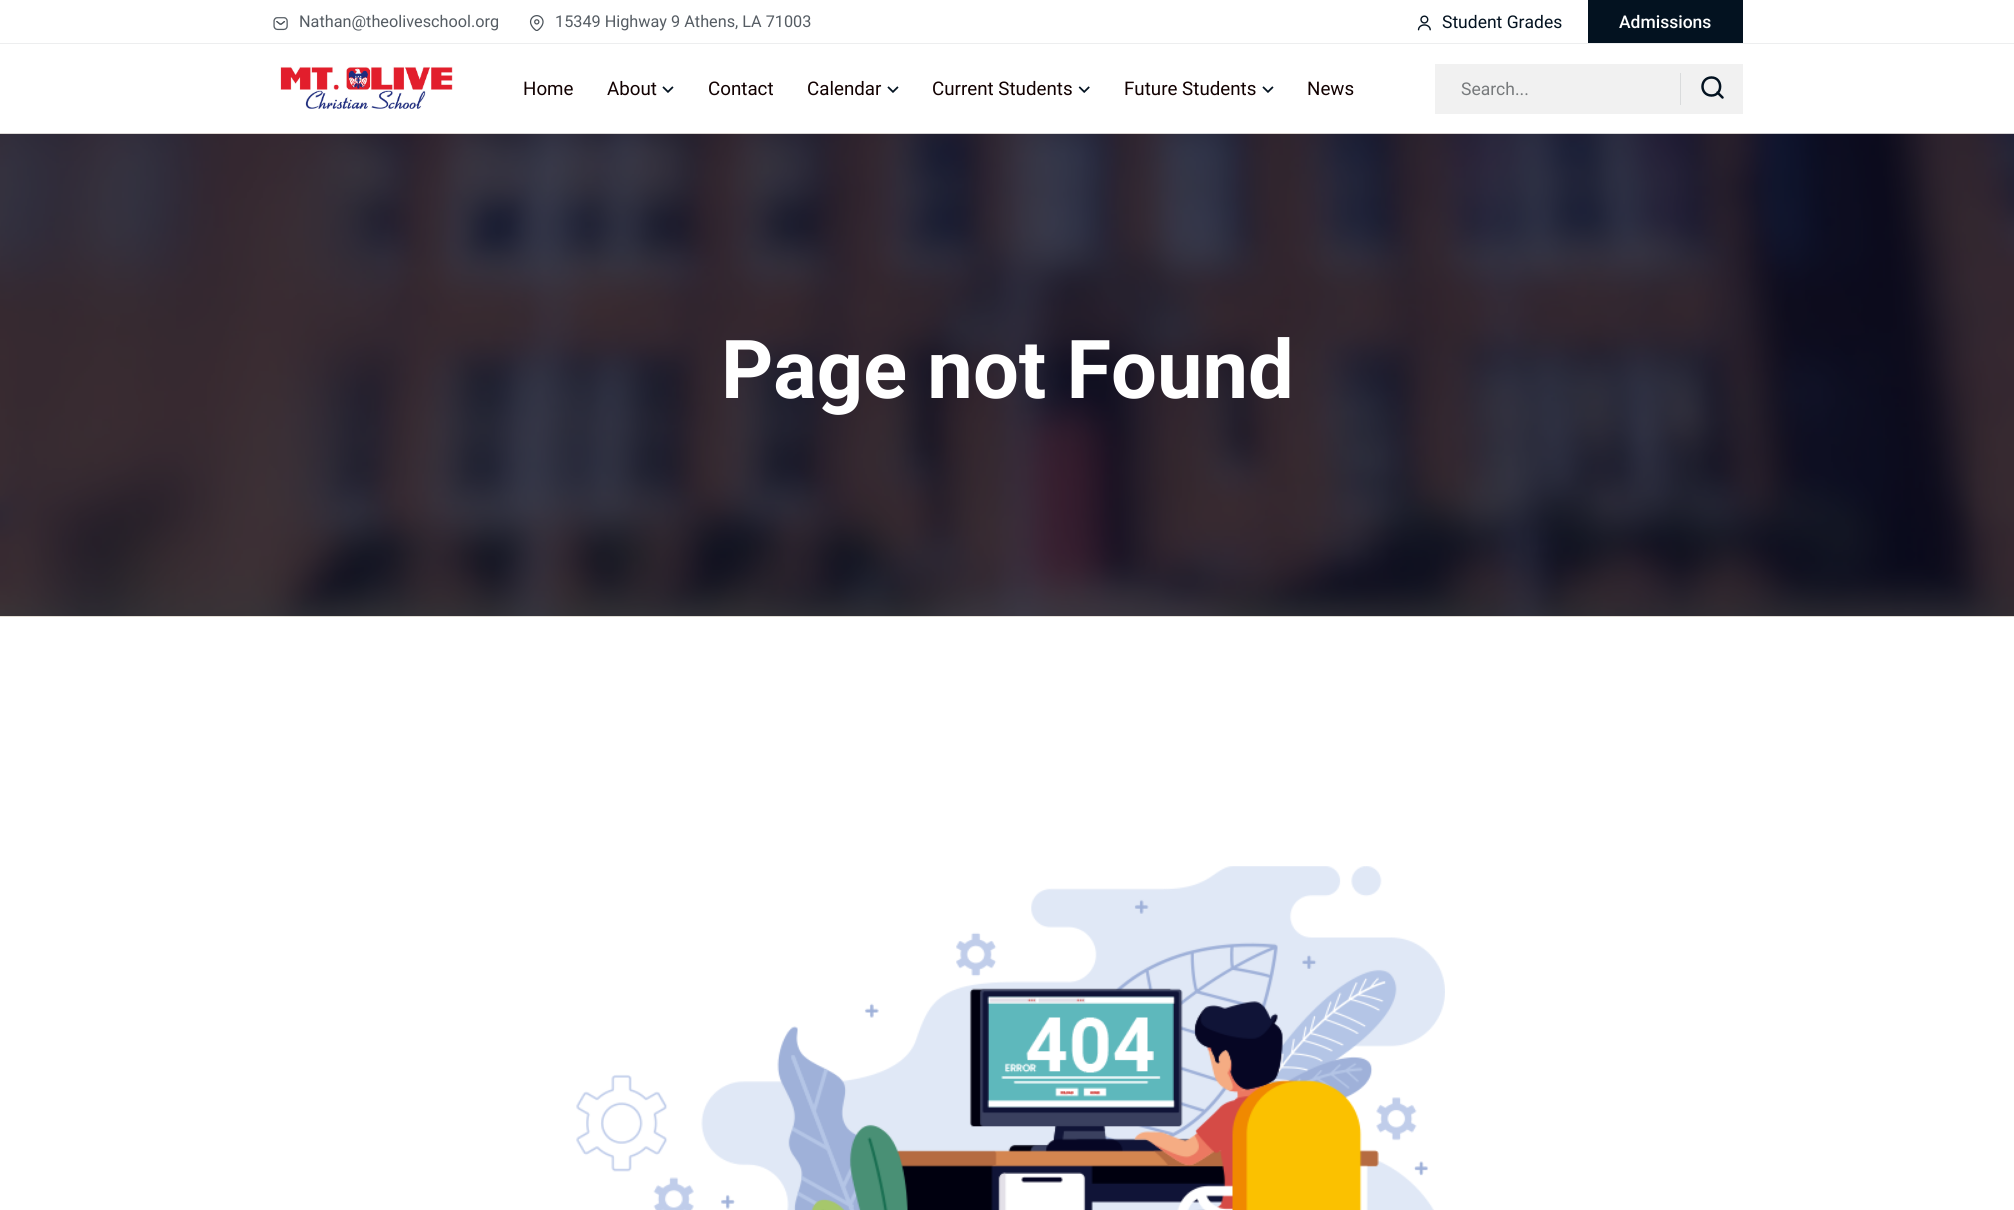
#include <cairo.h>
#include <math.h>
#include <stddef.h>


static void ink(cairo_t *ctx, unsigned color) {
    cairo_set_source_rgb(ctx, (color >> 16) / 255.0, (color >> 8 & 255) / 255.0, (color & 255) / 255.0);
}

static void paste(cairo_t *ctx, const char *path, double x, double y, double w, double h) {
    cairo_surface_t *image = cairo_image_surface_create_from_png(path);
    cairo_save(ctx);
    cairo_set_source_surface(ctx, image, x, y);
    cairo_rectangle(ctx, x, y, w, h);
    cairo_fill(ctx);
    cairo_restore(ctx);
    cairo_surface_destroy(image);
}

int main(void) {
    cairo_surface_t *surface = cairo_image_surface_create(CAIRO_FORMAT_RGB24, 2014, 1210);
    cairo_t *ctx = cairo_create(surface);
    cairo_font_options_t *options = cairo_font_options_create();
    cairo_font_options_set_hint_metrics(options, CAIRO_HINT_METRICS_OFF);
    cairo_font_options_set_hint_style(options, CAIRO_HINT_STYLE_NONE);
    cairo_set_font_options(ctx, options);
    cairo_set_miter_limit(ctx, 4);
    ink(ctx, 0xFFFFFF);
    cairo_paint(ctx);
    ink(ctx, 0xEDEEEF);
    cairo_rectangle(ctx, 0, 43, 2014, 1);
    cairo_fill(ctx);
    paste(ctx, "media/1.png", 273, 17, 15, 14);
    cairo_select_font_face(ctx, "Roboto", CAIRO_FONT_SLANT_NORMAL, CAIRO_FONT_WEIGHT_NORMAL);
    cairo_set_font_size(ctx, 16.25);
    ink(ctx, 0x555C63);
    cairo_move_to(ctx, 299, 27);
    cairo_show_text(ctx, "Nathan@theoliveschool.org");
    paste(ctx, "media/2.png", 529, 15, 15, 16);
    cairo_move_to(ctx, 555, 27);
    cairo_show_text(ctx, "15349 Highway 9 Athens, LA 71003");
    paste(ctx, "media/3.png", 1417, 15, 14, 16);
    cairo_set_font_size(ctx, 17.5);
    ink(ctx, 0x031220);
    cairo_move_to(ctx, 1442, 28);
    cairo_show_text(ctx, "Student Grades");
    cairo_rectangle(ctx, 1588, 0, 155, 43);
    cairo_fill(ctx);
    cairo_select_font_face(ctx, "Roboto Medium", CAIRO_FONT_SLANT_NORMAL, CAIRO_FONT_WEIGHT_NORMAL);
    ink(ctx, 0xFFFFFF);
    cairo_move_to(ctx, 1619, 28);
    cairo_show_text(ctx, "Admissions");
    paste(ctx, "media/4.png", 280, 66, 173, 43);
    cairo_select_font_face(ctx, "Roboto", CAIRO_FONT_SLANT_NORMAL, CAIRO_FONT_WEIGHT_NORMAL);
    cairo_set_font_size(ctx, 18.75);
    ink(ctx, 0x120101);
    cairo_move_to(ctx, 523, 95);
    cairo_show_text(ctx, "Home");
    cairo_move_to(ctx, 607, 95);
    cairo_show_text(ctx, "About");
    paste(ctx, "media/5.png", 662, 86, 12, 7);
    cairo_move_to(ctx, 708, 95);
    cairo_show_text(ctx, "Contact");
    cairo_move_to(ctx, 807, 95);
    cairo_show_text(ctx, "Calendar");
    paste(ctx, "media/5.png", 887, 86, 12, 7);
    cairo_move_to(ctx, 932, 95);
    cairo_show_text(ctx, "Current Students");
    paste(ctx, "media/6.png", 1078, 86, 12, 7);
    cairo_move_to(ctx, 1124, 95);
    cairo_show_text(ctx, "Future Students");
    paste(ctx, "media/5.png", 1262, 86, 12, 7);
    cairo_move_to(ctx, 1307, 95);
    cairo_show_text(ctx, "News");
    ink(ctx, 0xF1F1F1);
    cairo_rectangle(ctx, 1435, 64, 308, 50);
    cairo_fill(ctx);
    cairo_set_font_size(ctx, 17.5);
    ink(ctx, 0x777A7C);
    cairo_move_to(ctx, 1461, 95);
    cairo_show_text(ctx, "Search...");
    ink(ctx, 0xD9DBDC);
    cairo_rectangle(ctx, 1680, 73, 1, 32);
    cairo_fill(ctx);
    cairo_new_path(ctx);
    cairo_move_to(ctx, 1711.5, 95.5);
    cairo_curve_to(ctx, 1723, 95.5, 1723, 77.5, 1711.5, 77.5);
    cairo_curve_to(ctx, 1699.5, 77.5, 1699.5, 95.5, 1711.5, 95.5);
    cairo_close_path(ctx);
    cairo_move_to(ctx, 1722.5, 97.5);
    cairo_line_to(ctx, 1717.5, 92.5);
    ink(ctx, 0x031220);
    cairo_set_line_width(ctx, 2.5);
    cairo_set_line_cap(ctx, CAIRO_LINE_CAP_ROUND);
    cairo_set_line_join(ctx, CAIRO_LINE_JOIN_ROUND);
    cairo_stroke(ctx);
    paste(ctx, "media/7.png", 0, 133, 2014, 484);
    cairo_select_font_face(ctx, "Roboto", CAIRO_FONT_SLANT_NORMAL, CAIRO_FONT_WEIGHT_BOLD);
    cairo_set_font_size(ctx, 81.25);
    ink(ctx, 0xFFFFFF);
    cairo_move_to(ctx, 721, 398);
    cairo_show_text(ctx, "Page not Found");
    paste(ctx, "media/8.png", 576, 866, 869, 344);
    cairo_surface_write_to_png(surface, "image.png");
    cairo_font_options_destroy(options);
    cairo_destroy(ctx);
    cairo_surface_destroy(surface);
    return 0;
}
